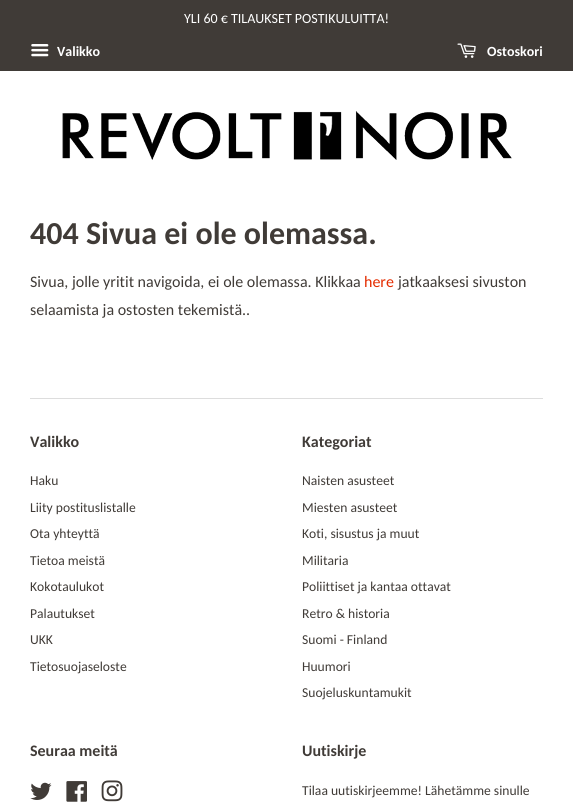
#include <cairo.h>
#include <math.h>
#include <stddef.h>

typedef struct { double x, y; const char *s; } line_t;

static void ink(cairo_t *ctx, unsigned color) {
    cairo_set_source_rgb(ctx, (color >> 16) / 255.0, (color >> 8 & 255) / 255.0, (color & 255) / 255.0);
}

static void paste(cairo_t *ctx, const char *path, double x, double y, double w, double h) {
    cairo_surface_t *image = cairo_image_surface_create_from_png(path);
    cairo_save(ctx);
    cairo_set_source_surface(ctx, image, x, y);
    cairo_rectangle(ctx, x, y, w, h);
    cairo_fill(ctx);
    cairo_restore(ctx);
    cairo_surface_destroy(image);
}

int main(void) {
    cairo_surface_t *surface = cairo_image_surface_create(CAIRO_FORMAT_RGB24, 573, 808);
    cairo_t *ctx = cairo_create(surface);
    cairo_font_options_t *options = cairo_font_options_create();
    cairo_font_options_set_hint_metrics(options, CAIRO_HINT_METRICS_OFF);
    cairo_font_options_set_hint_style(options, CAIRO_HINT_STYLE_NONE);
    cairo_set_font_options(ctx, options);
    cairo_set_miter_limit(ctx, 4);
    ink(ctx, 0xFFFFFF);
    cairo_paint(ctx);
    ink(ctx, 0x403B37);
    cairo_rectangle(ctx, 0, 0, 573, 71);
    cairo_fill(ctx);
    cairo_select_font_face(ctx, "Carlito", CAIRO_FONT_SLANT_NORMAL, CAIRO_FONT_WEIGHT_NORMAL);
    cairo_set_font_size(ctx, 14);
    ink(ctx, 0xFFFFFF);
    cairo_move_to(ctx, 184, 23);
    cairo_show_text(ctx, "YLI 60 € TILAUKSET POSTIKULUITTA!");
    paste(ctx, "media/1.png", 31, 44, 18, 13);
    cairo_select_font_face(ctx, "Carlito", CAIRO_FONT_SLANT_NORMAL, CAIRO_FONT_WEIGHT_BOLD);
    cairo_move_to(ctx, 57, 56);
    cairo_show_text(ctx, "Valikko");
    paste(ctx, "media/2.png", 457, 43, 19, 15);
    cairo_move_to(ctx, 487, 56);
    cairo_show_text(ctx, "Ostoskori");
    paste(ctx, "media/3.png", 62, 111, 450, 49);
    cairo_set_font_size(ctx, 32);
    ink(ctx, 0x403B37);
    cairo_move_to(ctx, 30, 244);
    cairo_show_text(ctx, "404 Sivua ei ole olemassa.");
    cairo_select_font_face(ctx, "Carlito", CAIRO_FONT_SLANT_NORMAL, CAIRO_FONT_WEIGHT_NORMAL);
    cairo_set_font_size(ctx, 16);
    cairo_move_to(ctx, 30, 287);
    cairo_show_text(ctx, "Sivua, jolle yritit navigoida, ei ole olemassa. Klikkaa");
    ink(ctx, 0xE42C00);
    cairo_move_to(ctx, 364, 287);
    cairo_show_text(ctx, "here");
    ink(ctx, 0x403B37);
    cairo_move_to(ctx, 398, 287);
    cairo_show_text(ctx, "jatkaaksesi sivuston");
    cairo_move_to(ctx, 30, 315);
    cairo_show_text(ctx, "selaamista ja ostosten tekemistä..");
    ink(ctx, 0xDDDDDD);
    cairo_rectangle(ctx, 30, 398, 513, 1);
    cairo_fill(ctx);
    cairo_select_font_face(ctx, "Carlito", CAIRO_FONT_SLANT_NORMAL, CAIRO_FONT_WEIGHT_BOLD);
    ink(ctx, 0x403B37);
    cairo_move_to(ctx, 30, 447);
    cairo_show_text(ctx, "Valikko");
    cairo_select_font_face(ctx, "Carlito", CAIRO_FONT_SLANT_NORMAL, CAIRO_FONT_WEIGHT_NORMAL);
    cairo_set_font_size(ctx, 13.6);
    {
        static const line_t items[] = {
            {30, 485, "Haku"},
            {30, 512, "Liity postituslistalle"},
            {30, 538, "Ota yhteyttä"},
            {30, 565, "Tietoa meistä"},
            {30, 591, "Kokotaulukot"},
            {30, 618, "Palautukset"},
            {30, 644, "UKK"},
            {30, 671, "Tietosuojaseloste"},
        };
        for (size_t i = 0; i < sizeof items / sizeof *items; i++) {
            cairo_move_to(ctx, items[i].x, items[i].y);
            cairo_show_text(ctx, items[i].s);
        }
    }
    cairo_select_font_face(ctx, "Carlito", CAIRO_FONT_SLANT_NORMAL, CAIRO_FONT_WEIGHT_BOLD);
    cairo_set_font_size(ctx, 16);
    cairo_move_to(ctx, 302, 447);
    cairo_show_text(ctx, "Kategoriat");
    cairo_select_font_face(ctx, "Carlito", CAIRO_FONT_SLANT_NORMAL, CAIRO_FONT_WEIGHT_NORMAL);
    cairo_set_font_size(ctx, 13.6);
    {
        static const line_t items[] = {
            {302, 485, "Naisten asusteet"},
            {302, 512, "Miesten asusteet"},
            {302, 538, "Koti, sisustus ja muut"},
            {302, 565, "Militaria"},
            {302, 591, "Poliittiset ja kantaa ottavat"},
            {302, 618, "Retro & historia"},
            {302, 644, "Suomi - Finland"},
            {302, 671, "Huumori"},
            {302, 697, "Suojeluskuntamukit"},
        };
        for (size_t i = 0; i < sizeof items / sizeof *items; i++) {
            cairo_move_to(ctx, items[i].x, items[i].y);
            cairo_show_text(ctx, items[i].s);
        }
    }
    cairo_select_font_face(ctx, "Carlito", CAIRO_FONT_SLANT_NORMAL, CAIRO_FONT_WEIGHT_BOLD);
    cairo_set_font_size(ctx, 16);
    cairo_move_to(ctx, 30, 756);
    cairo_show_text(ctx, "Seuraa meitä");
    paste(ctx, "media/4.png", 30, 782, 22, 18);
    paste(ctx, "media/5.png", 66, 781, 21, 21);
    paste(ctx, "media/6.png", 101, 780, 22, 22);
    cairo_move_to(ctx, 302, 756);
    cairo_show_text(ctx, "Uutiskirje");
    cairo_select_font_face(ctx, "Carlito", CAIRO_FONT_SLANT_NORMAL, CAIRO_FONT_WEIGHT_NORMAL);
    cairo_set_font_size(ctx, 13.6);
    cairo_move_to(ctx, 302, 795);
    cairo_show_text(ctx, "Tilaa uutiskirjeemme! Lähetämme sinulle");
    cairo_surface_write_to_png(surface, "image.png");
    cairo_font_options_destroy(options);
    cairo_destroy(ctx);
    cairo_surface_destroy(surface);
    return 0;
}
